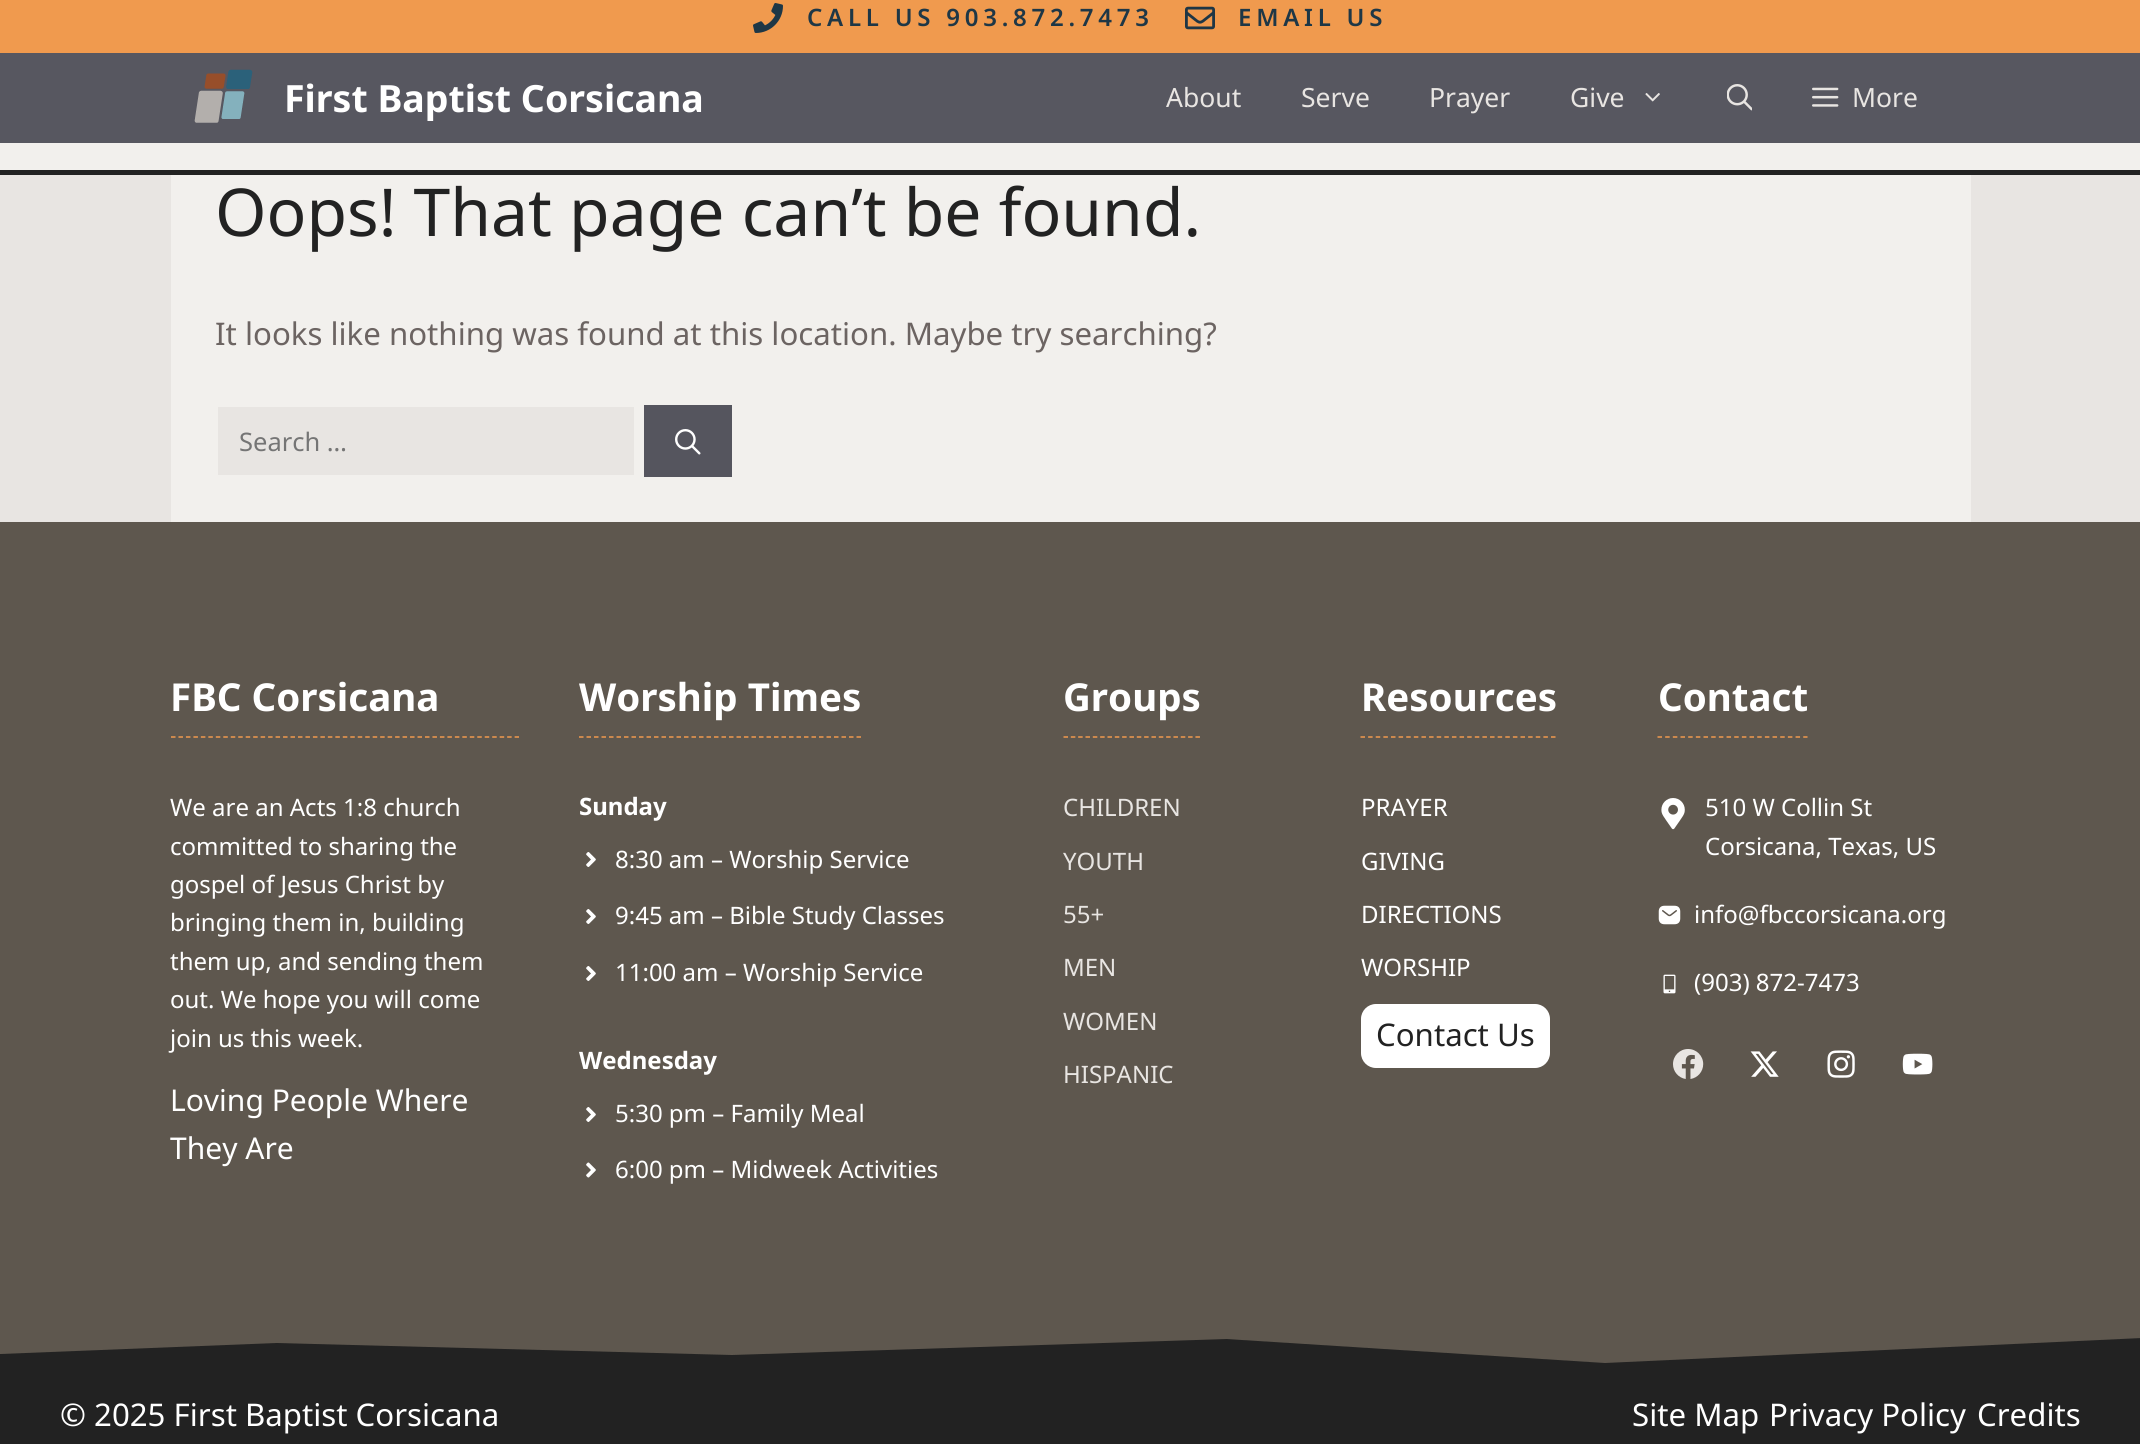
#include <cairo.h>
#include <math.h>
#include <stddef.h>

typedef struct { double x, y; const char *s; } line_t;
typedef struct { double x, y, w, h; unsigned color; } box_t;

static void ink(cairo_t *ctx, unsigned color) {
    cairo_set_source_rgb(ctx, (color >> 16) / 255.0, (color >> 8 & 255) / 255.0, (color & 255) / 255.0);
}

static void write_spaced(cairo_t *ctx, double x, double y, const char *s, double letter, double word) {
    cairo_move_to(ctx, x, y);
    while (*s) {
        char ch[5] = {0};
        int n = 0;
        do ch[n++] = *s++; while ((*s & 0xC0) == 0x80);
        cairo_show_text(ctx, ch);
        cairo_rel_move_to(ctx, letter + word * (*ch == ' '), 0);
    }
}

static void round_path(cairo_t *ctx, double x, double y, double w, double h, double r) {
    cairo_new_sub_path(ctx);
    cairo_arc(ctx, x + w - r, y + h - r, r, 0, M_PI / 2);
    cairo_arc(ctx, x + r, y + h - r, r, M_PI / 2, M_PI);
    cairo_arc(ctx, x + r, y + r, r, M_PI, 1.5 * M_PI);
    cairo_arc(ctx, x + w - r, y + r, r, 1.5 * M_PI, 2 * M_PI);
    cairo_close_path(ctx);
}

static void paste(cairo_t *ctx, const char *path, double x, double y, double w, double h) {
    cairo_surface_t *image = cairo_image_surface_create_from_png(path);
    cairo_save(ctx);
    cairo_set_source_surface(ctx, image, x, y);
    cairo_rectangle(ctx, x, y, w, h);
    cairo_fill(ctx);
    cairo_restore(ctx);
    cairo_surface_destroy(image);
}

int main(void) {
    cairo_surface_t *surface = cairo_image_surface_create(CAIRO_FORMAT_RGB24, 2140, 1444);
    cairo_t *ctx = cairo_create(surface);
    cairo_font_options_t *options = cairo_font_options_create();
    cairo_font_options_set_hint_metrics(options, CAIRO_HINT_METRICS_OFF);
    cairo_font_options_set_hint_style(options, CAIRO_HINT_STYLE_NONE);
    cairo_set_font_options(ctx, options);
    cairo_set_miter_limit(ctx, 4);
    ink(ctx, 0xE8E5E2);
    cairo_paint(ctx);
    ink(ctx, 0xF09A4E);
    cairo_rectangle(ctx, 0, 0, 2140, 53);
    cairo_fill(ctx);
    paste(ctx, "media/1.png", 753, 3, 30, 30);
    cairo_select_font_face(ctx, "Noto Sans SemiBold", CAIRO_FONT_SLANT_NORMAL, CAIRO_FONT_WEIGHT_NORMAL);
    cairo_set_font_size(ctx, 24);
    ink(ctx, 0x1E3746);
    write_spaced(ctx, 807, 26, "CALL US 903.872.7473", 4.75, 0);
    paste(ctx, "media/2.png", 1185, 6, 30, 24);
    write_spaced(ctx, 1238, 26, "EMAIL US", 4.75, 0);
    ink(ctx, 0x575760);
    cairo_rectangle(ctx, 0, 53, 2140, 90);
    cairo_fill(ctx);
    paste(ctx, "media/3.png", 194, 69, 59, 54);
    cairo_select_font_face(ctx, "Noto Sans", CAIRO_FONT_SLANT_NORMAL, CAIRO_FONT_WEIGHT_BOLD);
    cairo_set_font_size(ctx, 37.5);
    ink(ctx, 0xFFFFFF);
    cairo_move_to(ctx, 284, 112);
    cairo_show_text(ctx, "First Baptist Corsicana");
    cairo_select_font_face(ctx, "Noto Sans", CAIRO_FONT_SLANT_NORMAL, CAIRO_FONT_WEIGHT_NORMAL);
    cairo_set_font_size(ctx, 26.5);
    ink(ctx, 0xE8E5E2);
    {
        static const line_t items[] = {
            {1166, 107, "About"},
            {1301, 107, "Serve"},
            {1429, 107, "Prayer"},
            {1570, 107, "Give"},
        };
        for (size_t i = 0; i < sizeof items / sizeof *items; i++) {
            cairo_move_to(ctx, items[i].x, items[i].y);
            cairo_show_text(ctx, items[i].s);
        }
    }
    paste(ctx, "media/4.png", 1645, 93, 15, 9);
    paste(ctx, "media/5.png", 1727, 84, 25, 27);
    paste(ctx, "media/6.png", 1812, 87, 27, 20);
    cairo_move_to(ctx, 1852, 107);
    cairo_show_text(ctx, "More");
    {
        static const box_t items[] = {
            {0, 143, 2140, 27, 0xF2F0ED},
            {0, 170, 2140, 5, 0x222222},
            {171, 175, 1800, 347, 0xF2F0ED},
        };
        for (size_t i = 0; i < sizeof items / sizeof *items; i++) {
            ink(ctx, items[i].color);
            cairo_rectangle(ctx, items[i].x, items[i].y, items[i].w, items[i].h);
            cairo_fill(ctx);
        }
    }
    cairo_set_font_size(ctx, 66);
    ink(ctx, 0x222222);
    cairo_move_to(ctx, 215, 236);
    cairo_show_text(ctx, "Oops! That page can’t be found.");
    cairo_set_font_size(ctx, 31.2);
    ink(ctx, 0x6C6462);
    cairo_move_to(ctx, 215, 345);
    cairo_show_text(ctx, "It looks like nothing was found at this location. Maybe try searching?");
    ink(ctx, 0xE8E5E2);
    cairo_rectangle(ctx, 218, 407, 416, 68);
    cairo_fill(ctx);
    cairo_set_font_size(ctx, 25.5);
    ink(ctx, 0x757575);
    cairo_move_to(ctx, 239, 451);
    cairo_show_text(ctx, "Search …");
    ink(ctx, 0x55555E);
    cairo_rectangle(ctx, 644, 405, 88, 72);
    cairo_fill(ctx);
    paste(ctx, "media/7.png", 675, 429, 26, 26);
    ink(ctx, 0x5E574E);
    cairo_rectangle(ctx, 0, 522, 2140, 841);
    cairo_fill(ctx);
    cairo_new_path(ctx);
    cairo_move_to(ctx, 171, 737);
    cairo_line_to(ctx, 519, 737);
    ink(ctx, 0xF09A4E);
    cairo_set_line_width(ctx, 1.5);
    cairo_set_dash(ctx, (double[]){4.5, 2.97}, 2, 0);
    cairo_stroke(ctx);
    cairo_select_font_face(ctx, "Noto Sans", CAIRO_FONT_SLANT_NORMAL, CAIRO_FONT_WEIGHT_BOLD);
    cairo_set_font_size(ctx, 38.5);
    ink(ctx, 0xFFFFFF);
    cairo_move_to(ctx, 170, 711);
    cairo_show_text(ctx, "FBC Corsicana");
    cairo_select_font_face(ctx, "Noto Sans", CAIRO_FONT_SLANT_NORMAL, CAIRO_FONT_WEIGHT_NORMAL);
    cairo_set_font_size(ctx, 24);
    {
        static const line_t items[] = {
            {170, 816, "We are an Acts 1:8 church"},
            {170, 855, "committed to sharing the"},
            {170, 893, "gospel of Jesus Christ by"},
            {170, 931, "bringing them in, building"},
            {170, 970, "them up, and sending them"},
            {170, 1008, "out. We hope you will come"},
            {170, 1047, "join us this week."},
        };
        for (size_t i = 0; i < sizeof items / sizeof *items; i++) {
            cairo_move_to(ctx, items[i].x, items[i].y);
            cairo_show_text(ctx, items[i].s);
        }
    }
    cairo_set_font_size(ctx, 30);
    cairo_move_to(ctx, 170, 1111);
    cairo_show_text(ctx, "Loving People Where");
    cairo_move_to(ctx, 170, 1159);
    cairo_show_text(ctx, "They Are");
    cairo_new_path(ctx);
    cairo_move_to(ctx, 579, 737);
    cairo_line_to(ctx, 861, 737);
    ink(ctx, 0xF09A4E);
    cairo_set_dash(ctx, (double[]){4.5, 3}, 2, 0);
    cairo_stroke(ctx);
    cairo_select_font_face(ctx, "Noto Sans", CAIRO_FONT_SLANT_NORMAL, CAIRO_FONT_WEIGHT_BOLD);
    cairo_set_font_size(ctx, 38.5);
    ink(ctx, 0xFFFFFF);
    cairo_move_to(ctx, 579, 711);
    cairo_show_text(ctx, "Worship Times");
    cairo_set_font_size(ctx, 24);
    cairo_move_to(ctx, 579, 815);
    cairo_show_text(ctx, "Sunday");
    paste(ctx, "media/8.png", 586, 852, 10, 15);
    cairo_select_font_face(ctx, "Noto Sans", CAIRO_FONT_SLANT_NORMAL, CAIRO_FONT_WEIGHT_NORMAL);
    cairo_move_to(ctx, 615, 868);
    cairo_show_text(ctx, "8:30 am – Worship Service");
    paste(ctx, "media/8.png", 586, 909, 10, 15);
    cairo_move_to(ctx, 615, 924);
    cairo_show_text(ctx, "9:45 am – Bible Study Classes");
    paste(ctx, "media/8.png", 586, 966, 10, 15);
    cairo_move_to(ctx, 615, 981);
    cairo_show_text(ctx, "11:00 am – Worship Service");
    cairo_select_font_face(ctx, "Noto Sans", CAIRO_FONT_SLANT_NORMAL, CAIRO_FONT_WEIGHT_BOLD);
    cairo_move_to(ctx, 579, 1069);
    cairo_show_text(ctx, "Wednesday");
    paste(ctx, "media/8.png", 586, 1107, 10, 15);
    cairo_select_font_face(ctx, "Noto Sans", CAIRO_FONT_SLANT_NORMAL, CAIRO_FONT_WEIGHT_NORMAL);
    cairo_move_to(ctx, 615, 1122);
    cairo_show_text(ctx, "5:30 pm – Family Meal");
    paste(ctx, "media/9.png", 586, 1162, 10, 16);
    cairo_move_to(ctx, 615, 1178);
    cairo_show_text(ctx, "6:00 pm – Midweek Activities");
    cairo_new_path(ctx);
    cairo_move_to(ctx, 1063.5, 737);
    cairo_line_to(ctx, 1200, 737);
    ink(ctx, 0xF09A4E);
    cairo_set_dash(ctx, (double[]){4.5, 2.83}, 2, 0);
    cairo_stroke(ctx);
    cairo_select_font_face(ctx, "Noto Sans", CAIRO_FONT_SLANT_NORMAL, CAIRO_FONT_WEIGHT_BOLD);
    cairo_set_font_size(ctx, 38.5);
    ink(ctx, 0xFFFFFF);
    cairo_move_to(ctx, 1063, 711);
    cairo_show_text(ctx, "Groups");
    cairo_select_font_face(ctx, "Noto Sans", CAIRO_FONT_SLANT_NORMAL, CAIRO_FONT_WEIGHT_NORMAL);
    cairo_set_font_size(ctx, 24);
    ink(ctx, 0xE8E5E2);
    {
        static const line_t items[] = {
            {1063, 816, "CHILDREN"},
            {1063, 870, "YOUTH"},
            {1063, 923, "55+"},
            {1063, 976, "MEN"},
            {1063, 1030, "WOMEN"},
            {1063, 1083, "HISPANIC"},
        };
        for (size_t i = 0; i < sizeof items / sizeof *items; i++) {
            cairo_move_to(ctx, items[i].x, items[i].y);
            cairo_show_text(ctx, items[i].s);
        }
    }
    cairo_new_path(ctx);
    cairo_move_to(ctx, 1360.5, 737);
    cairo_line_to(ctx, 1555.5, 737);
    ink(ctx, 0xF09A4E);
    cairo_set_dash(ctx, (double[]){4.5, 3.12}, 2, 0);
    cairo_stroke(ctx);
    cairo_select_font_face(ctx, "Noto Sans", CAIRO_FONT_SLANT_NORMAL, CAIRO_FONT_WEIGHT_BOLD);
    cairo_set_font_size(ctx, 38.5);
    ink(ctx, 0xFFFFFF);
    cairo_move_to(ctx, 1361, 711);
    cairo_show_text(ctx, "Resources");
    cairo_select_font_face(ctx, "Noto Sans", CAIRO_FONT_SLANT_NORMAL, CAIRO_FONT_WEIGHT_NORMAL);
    cairo_set_font_size(ctx, 24);
    {
        static const line_t items[] = {
            {1361, 816, "PRAYER"},
            {1361, 870, "GIVING"},
            {1361, 923, "DIRECTIONS"},
            {1361, 976, "WORSHIP"},
        };
        for (size_t i = 0; i < sizeof items / sizeof *items; i++) {
            cairo_move_to(ctx, items[i].x, items[i].y);
            cairo_show_text(ctx, items[i].s);
        }
    }
    round_path(ctx, 1361, 1004, 189, 64, 15);
    cairo_fill(ctx);
    cairo_set_font_size(ctx, 31.2);
    ink(ctx, 0x222222);
    cairo_move_to(ctx, 1376, 1046);
    cairo_show_text(ctx, "Contact Us");
    cairo_new_path(ctx);
    cairo_move_to(ctx, 1657.5, 737);
    cairo_line_to(ctx, 1807.5, 737);
    ink(ctx, 0xF09A4E);
    cairo_set_dash(ctx, (double[]){4.5, 3.17}, 2, 0);
    cairo_stroke(ctx);
    cairo_select_font_face(ctx, "Noto Sans", CAIRO_FONT_SLANT_NORMAL, CAIRO_FONT_WEIGHT_BOLD);
    cairo_set_font_size(ctx, 38.5);
    ink(ctx, 0xFFFFFF);
    cairo_move_to(ctx, 1658, 711);
    cairo_show_text(ctx, "Contact");
    paste(ctx, "media/10.png", 1661, 798, 24, 32);
    cairo_select_font_face(ctx, "Noto Sans", CAIRO_FONT_SLANT_NORMAL, CAIRO_FONT_WEIGHT_NORMAL);
    cairo_set_font_size(ctx, 24);
    cairo_move_to(ctx, 1705, 816);
    cairo_show_text(ctx, "510 W Collin St");
    cairo_move_to(ctx, 1705, 855);
    cairo_show_text(ctx, "Corsicana, Texas, US");
    paste(ctx, "media/11.png", 1658, 905, 23, 20);
    cairo_move_to(ctx, 1694, 923);
    cairo_show_text(ctx, "info@fbccorsicana.org");
    paste(ctx, "media/12.png", 1663, 974, 13, 20);
    cairo_move_to(ctx, 1694, 991);
    cairo_show_text(ctx, "(903) 872-7473");
    paste(ctx, "media/13.png", 1673, 1049, 31, 30);
    paste(ctx, "media/14.png", 1750, 1051, 29, 26);
    paste(ctx, "media/15.png", 1827, 1050, 28, 28);
    paste(ctx, "media/16.png", 1902, 1053, 31, 22);
    cairo_save(ctx);
    cairo_rectangle(ctx, 0, 1338, 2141, 29);
    cairo_clip(ctx);
    ink(ctx, 0x222222);
    cairo_new_path(ctx);
    cairo_move_to(ctx, 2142, 1338);
    cairo_line_to(ctx, 1605, 1363);
    cairo_line_to(ctx, 1226, 1339);
    cairo_line_to(ctx, 732, 1355);
    cairo_line_to(ctx, 276, 1343);
    cairo_line_to(ctx, 0, 1354);
    cairo_line_to(ctx, 0, 1368);
    cairo_line_to(ctx, 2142, 1368);
    cairo_close_path(ctx);
    cairo_fill(ctx);
    cairo_restore(ctx);
    ink(ctx, 0x222222);
    cairo_rectangle(ctx, 0, 1367, 2140, 77);
    cairo_fill(ctx);
    cairo_set_font_size(ctx, 31.2);
    ink(ctx, 0xFFFFFF);
    {
        static const line_t items[] = {
            {60, 1426, "© 2025 First Baptist Corsicana"},
            {1632, 1426, "Site Map"},
            {1769, 1426, "Privacy Policy"},
            {1977, 1426, "Credits"},
        };
        for (size_t i = 0; i < sizeof items / sizeof *items; i++) {
            cairo_move_to(ctx, items[i].x, items[i].y);
            cairo_show_text(ctx, items[i].s);
        }
    }
    cairo_surface_write_to_png(surface, "image.png");
    cairo_font_options_destroy(options);
    cairo_destroy(ctx);
    cairo_surface_destroy(surface);
    return 0;
}
